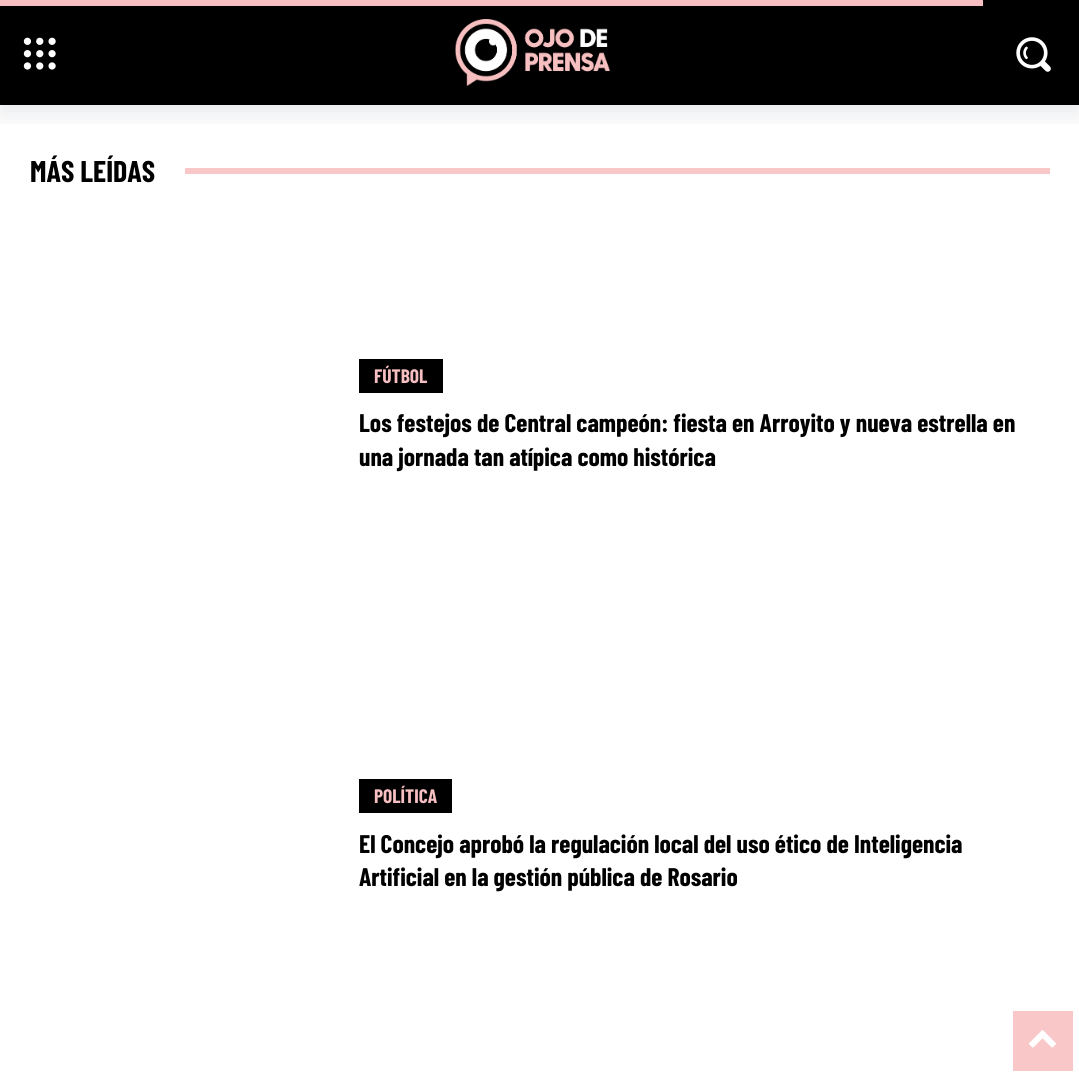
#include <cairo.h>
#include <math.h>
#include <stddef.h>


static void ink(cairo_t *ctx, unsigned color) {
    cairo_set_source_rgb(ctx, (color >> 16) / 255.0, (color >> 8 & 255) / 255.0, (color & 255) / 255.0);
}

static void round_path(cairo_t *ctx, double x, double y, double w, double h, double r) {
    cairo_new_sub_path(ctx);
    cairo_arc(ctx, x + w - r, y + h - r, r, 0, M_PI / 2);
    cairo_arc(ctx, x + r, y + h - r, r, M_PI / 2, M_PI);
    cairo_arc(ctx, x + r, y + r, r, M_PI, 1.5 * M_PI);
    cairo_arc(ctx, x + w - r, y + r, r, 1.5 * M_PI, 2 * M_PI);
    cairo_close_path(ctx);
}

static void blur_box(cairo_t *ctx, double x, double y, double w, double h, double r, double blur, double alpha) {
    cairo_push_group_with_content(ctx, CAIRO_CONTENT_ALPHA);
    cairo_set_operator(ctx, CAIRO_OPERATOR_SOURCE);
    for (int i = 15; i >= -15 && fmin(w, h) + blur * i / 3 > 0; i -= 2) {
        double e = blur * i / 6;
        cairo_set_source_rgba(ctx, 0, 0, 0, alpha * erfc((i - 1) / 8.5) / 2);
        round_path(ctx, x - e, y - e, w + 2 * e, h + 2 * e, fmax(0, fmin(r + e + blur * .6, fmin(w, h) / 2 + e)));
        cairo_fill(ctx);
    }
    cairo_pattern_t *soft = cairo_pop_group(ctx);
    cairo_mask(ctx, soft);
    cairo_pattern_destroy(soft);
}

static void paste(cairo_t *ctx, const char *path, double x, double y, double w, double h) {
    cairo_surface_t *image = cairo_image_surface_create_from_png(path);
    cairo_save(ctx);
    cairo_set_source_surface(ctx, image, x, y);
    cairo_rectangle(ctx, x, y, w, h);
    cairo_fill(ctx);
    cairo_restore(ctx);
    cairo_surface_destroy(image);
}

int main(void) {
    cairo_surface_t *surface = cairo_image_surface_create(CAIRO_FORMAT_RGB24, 1079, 1077);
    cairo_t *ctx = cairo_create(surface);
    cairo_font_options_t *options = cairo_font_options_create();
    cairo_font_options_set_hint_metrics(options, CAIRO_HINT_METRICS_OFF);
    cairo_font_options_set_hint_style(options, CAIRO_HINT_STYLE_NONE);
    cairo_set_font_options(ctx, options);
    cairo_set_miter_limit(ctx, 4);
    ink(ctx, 0xFFFFFF);
    cairo_paint(ctx);
    ink(ctx, 0x000000);
    cairo_rectangle(ctx, 0, 0, 1079, 105);
    cairo_fill(ctx);
    paste(ctx, "media/1.png", 23, 37, 33, 33);
    paste(ctx, "media/2.png", 455, 19, 156, 67);
    paste(ctx, "media/3.png", 1016, 37, 35, 35);
    cairo_save(ctx);
    cairo_rectangle(ctx, 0, 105, 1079, 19);
    cairo_clip(ctx);
    ink(ctx, 0x16233A);
    blur_box(ctx, 0, 9, 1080, 105, 0, 12, 0.1);
    cairo_restore(ctx);
    ink(ctx, 0xF7BFC1);
    cairo_rectangle(ctx, 0, 0, 983, 6);
    cairo_fill(ctx);
    cairo_select_font_face(ctx, "Barlow Condensed", CAIRO_FONT_SLANT_NORMAL, CAIRO_FONT_WEIGHT_BOLD);
    cairo_set_font_size(ctx, 30);
    ink(ctx, 0x000000);
    cairo_move_to(ctx, 30, 182);
    cairo_show_text(ctx, "MÁS LEÍDAS");
    ink(ctx, 0xF9C7C8);
    cairo_rectangle(ctx, 185, 168, 865, 6);
    cairo_fill(ctx);
    ink(ctx, 0x000000);
    cairo_rectangle(ctx, 359, 359, 84, 34);
    cairo_fill(ctx);
    cairo_set_font_size(ctx, 19.5);
    ink(ctx, 0xF7BFC1);
    cairo_move_to(ctx, 374, 383);
    cairo_show_text(ctx, "FÚTBOL");
    cairo_set_font_size(ctx, 25.5);
    ink(ctx, 0x000000);
    cairo_move_to(ctx, 359, 432);
    cairo_show_text(ctx, "Los festejos de Central campeón: fiesta en Arroyito y nueva estrella en");
    cairo_move_to(ctx, 359, 466);
    cairo_show_text(ctx, "una jornada tan atípica como histórica");
    cairo_rectangle(ctx, 359, 779, 93, 34);
    cairo_fill(ctx);
    cairo_set_font_size(ctx, 19.5);
    ink(ctx, 0xF7BFC1);
    cairo_move_to(ctx, 374, 803);
    cairo_show_text(ctx, "POLÍTICA");
    cairo_set_font_size(ctx, 25.5);
    ink(ctx, 0x000000);
    cairo_move_to(ctx, 359, 853);
    cairo_show_text(ctx, "El Concejo aprobó la regulación local del uso ético de Inteligencia");
    cairo_move_to(ctx, 359, 886);
    cairo_show_text(ctx, "Artificial en la gestión pública de Rosario");
    ink(ctx, 0xF9C7C8);
    cairo_rectangle(ctx, 1013, 1011, 60, 60);
    cairo_fill(ctx);
    paste(ctx, "media/4.png", 1029, 1030, 27, 18);
    cairo_surface_write_to_png(surface, "image.png");
    cairo_font_options_destroy(options);
    cairo_destroy(ctx);
    cairo_surface_destroy(surface);
    return 0;
}
